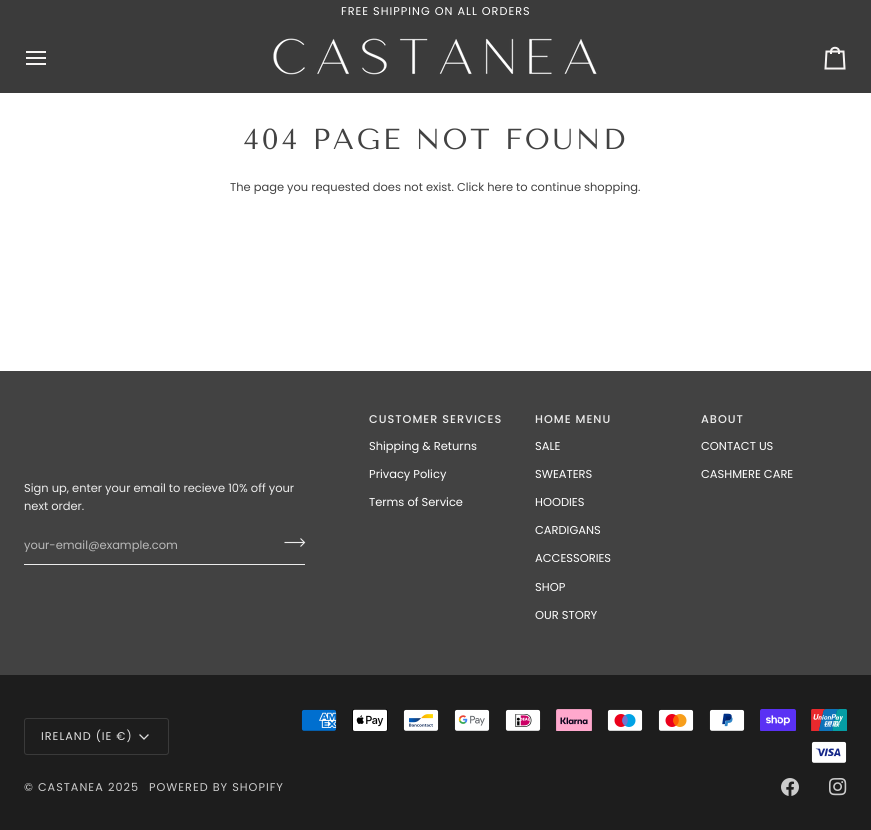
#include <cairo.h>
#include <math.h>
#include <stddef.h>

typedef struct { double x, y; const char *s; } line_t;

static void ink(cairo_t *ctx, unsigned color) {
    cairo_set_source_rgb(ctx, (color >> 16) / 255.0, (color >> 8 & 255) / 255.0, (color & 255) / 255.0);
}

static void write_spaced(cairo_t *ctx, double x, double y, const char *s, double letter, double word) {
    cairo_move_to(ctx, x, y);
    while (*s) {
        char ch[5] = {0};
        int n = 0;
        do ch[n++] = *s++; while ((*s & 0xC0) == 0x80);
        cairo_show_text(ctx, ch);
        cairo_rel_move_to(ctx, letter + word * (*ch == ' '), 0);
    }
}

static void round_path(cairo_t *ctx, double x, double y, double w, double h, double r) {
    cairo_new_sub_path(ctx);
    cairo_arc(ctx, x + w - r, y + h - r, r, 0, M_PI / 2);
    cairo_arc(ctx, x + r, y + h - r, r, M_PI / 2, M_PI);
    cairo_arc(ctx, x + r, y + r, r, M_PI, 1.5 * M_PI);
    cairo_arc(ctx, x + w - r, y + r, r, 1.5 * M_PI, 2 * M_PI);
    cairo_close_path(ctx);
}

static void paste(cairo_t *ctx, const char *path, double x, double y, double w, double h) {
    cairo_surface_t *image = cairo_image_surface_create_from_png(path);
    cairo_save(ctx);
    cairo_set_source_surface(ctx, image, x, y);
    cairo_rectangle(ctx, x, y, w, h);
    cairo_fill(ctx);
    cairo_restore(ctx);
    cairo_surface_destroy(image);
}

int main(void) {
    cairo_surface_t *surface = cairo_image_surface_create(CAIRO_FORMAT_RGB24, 871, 830);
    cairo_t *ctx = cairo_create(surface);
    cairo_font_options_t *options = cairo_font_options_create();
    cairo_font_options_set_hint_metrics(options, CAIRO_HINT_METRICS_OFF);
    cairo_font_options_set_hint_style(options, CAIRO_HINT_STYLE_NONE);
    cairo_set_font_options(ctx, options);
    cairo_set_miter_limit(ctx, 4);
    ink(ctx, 0xFFFFFF);
    cairo_paint(ctx);
    ink(ctx, 0x3B3B3B);
    cairo_rectangle(ctx, 0, 0, 871, 93);
    cairo_fill(ctx);
    cairo_select_font_face(ctx, "Poppins", CAIRO_FONT_SLANT_NORMAL, CAIRO_FONT_WEIGHT_NORMAL);
    cairo_set_font_size(ctx, 11.25);
    ink(ctx, 0xFFFFFF);
    write_spaced(ctx, 341, 15, "FREE SHIPPING ON ALL ORDERS", 1, 0);
    cairo_new_path(ctx);
    cairo_move_to(ctx, 45, 52);
    cairo_line_to(ctx, 27, 52);
    cairo_move_to(ctx, 45, 58);
    cairo_line_to(ctx, 27, 58);
    cairo_move_to(ctx, 45, 64);
    cairo_line_to(ctx, 27, 64);
    ink(ctx, 0xF7F5F4);
    cairo_set_line_cap(ctx, CAIRO_LINE_CAP_SQUARE);
    cairo_stroke(ctx);
    paste(ctx, "media/1.png", 273, 38, 324, 37);
    cairo_new_path(ctx);
    cairo_move_to(ctx, 839, 54);
    cairo_line_to(ctx, 839, 51.5);
    cairo_line_to(ctx, 843.5, 51.5);
    cairo_line_to(ctx, 844.5, 68.5);
    cairo_line_to(ctx, 825.5, 68.5);
    cairo_line_to(ctx, 826.5, 51.5);
    cairo_line_to(ctx, 831, 51.5);
    cairo_curve_to(ctx, 831, 46.5, 839, 46.5, 839, 51.5);
    cairo_line_to(ctx, 831, 51.5);
    cairo_line_to(ctx, 831, 54);
    cairo_set_line_cap(ctx, CAIRO_LINE_CAP_BUTT);
    cairo_stroke(ctx);
    cairo_select_font_face(ctx, "Tenor Sans", CAIRO_FONT_SLANT_NORMAL, CAIRO_FONT_WEIGHT_NORMAL);
    cairo_set_font_size(ctx, 28.9);
    ink(ctx, 0x424242);
    write_spaced(ctx, 243, 149, "404 PAGE NOT FOUND", 2.6, 0);
    cairo_select_font_face(ctx, "Poppins", CAIRO_FONT_SLANT_NORMAL, CAIRO_FONT_WEIGHT_NORMAL);
    cairo_set_font_size(ctx, 11.45);
    cairo_move_to(ctx, 230, 191);
    cairo_show_text(ctx, "The page you requested does not exist. Click here to continue shopping.");
    cairo_rectangle(ctx, 0, 371, 871, 304);
    cairo_fill(ctx);
    ink(ctx, 0xECECEC);
    cairo_move_to(ctx, 24, 492);
    cairo_show_text(ctx, "Sign up, enter your email to recieve 10% off your");
    cairo_move_to(ctx, 24, 510);
    cairo_show_text(ctx, "next order.");
    cairo_rectangle(ctx, 24, 564, 281, 1);
    cairo_fill(ctx);
    ink(ctx, 0xB9B9B9);
    cairo_move_to(ctx, 24, 549);
    cairo_show_text(ctx, "your-email@example.com");
    cairo_new_path(ctx);
    cairo_move_to(ctx, 300.5, 538.5);
    cairo_line_to(ctx, 304.5, 542.5);
    cairo_line_to(ctx, 300.5, 546.5);
    cairo_move_to(ctx, 284.5, 542.5);
    cairo_line_to(ctx, 304.5, 542.5);
    ink(ctx, 0xECECEC);
    cairo_set_line_width(ctx, 1.1);
    cairo_stroke(ctx);
    cairo_select_font_face(ctx, "Poppins Medium", CAIRO_FONT_SLANT_NORMAL, CAIRO_FONT_WEIGHT_NORMAL);
    cairo_set_font_size(ctx, 11.25);
    write_spaced(ctx, 369, 423, "CUSTOMER SERVICES", 1, 0);
    cairo_select_font_face(ctx, "Poppins", CAIRO_FONT_SLANT_NORMAL, CAIRO_FONT_WEIGHT_NORMAL);
    cairo_set_font_size(ctx, 11.45);
    ink(ctx, 0xFFFFFF);
    {
        static const line_t items[] = {
            {369, 450, "Shipping & Returns"},
            {369, 478, "Privacy Policy"},
            {369, 506, "Terms of Service"},
        };
        for (size_t i = 0; i < sizeof items / sizeof *items; i++) {
            cairo_move_to(ctx, items[i].x, items[i].y);
            cairo_show_text(ctx, items[i].s);
        }
    }
    cairo_select_font_face(ctx, "Poppins Medium", CAIRO_FONT_SLANT_NORMAL, CAIRO_FONT_WEIGHT_NORMAL);
    cairo_set_font_size(ctx, 11.25);
    ink(ctx, 0xECECEC);
    write_spaced(ctx, 535, 423, "HOME MENU", 1, 0);
    cairo_select_font_face(ctx, "Poppins", CAIRO_FONT_SLANT_NORMAL, CAIRO_FONT_WEIGHT_NORMAL);
    cairo_set_font_size(ctx, 11.45);
    ink(ctx, 0xFFFFFF);
    {
        static const line_t items[] = {
            {535, 450, "SALE"},
            {535, 478, "SWEATERS"},
            {535, 506, "HOODIES"},
            {535, 534, "CARDIGANS"},
            {535, 562, "ACCESSORIES"},
            {535, 591, "SHOP"},
            {535, 619, "OUR STORY"},
        };
        for (size_t i = 0; i < sizeof items / sizeof *items; i++) {
            cairo_move_to(ctx, items[i].x, items[i].y);
            cairo_show_text(ctx, items[i].s);
        }
    }
    cairo_select_font_face(ctx, "Poppins Medium", CAIRO_FONT_SLANT_NORMAL, CAIRO_FONT_WEIGHT_NORMAL);
    cairo_set_font_size(ctx, 11.25);
    ink(ctx, 0xECECEC);
    write_spaced(ctx, 701, 423, "ABOUT", 1, 0);
    cairo_select_font_face(ctx, "Poppins", CAIRO_FONT_SLANT_NORMAL, CAIRO_FONT_WEIGHT_NORMAL);
    cairo_set_font_size(ctx, 11.45);
    ink(ctx, 0xFFFFFF);
    cairo_move_to(ctx, 701, 450);
    cairo_show_text(ctx, "CONTACT US");
    cairo_move_to(ctx, 701, 478);
    cairo_show_text(ctx, "CASHMERE CARE");
    ink(ctx, 0x1D1D1D);
    cairo_rectangle(ctx, 0, 675, 871, 155);
    cairo_fill(ctx);
    round_path(ctx, 24.5, 718.5, 144, 36, 2.5);
    ink(ctx, 0x3A3A3A);
    cairo_set_line_width(ctx, 1);
    cairo_stroke(ctx);
    cairo_set_font_size(ctx, 11.25);
    ink(ctx, 0xDFDFDF);
    write_spaced(ctx, 41, 740, "IRELAND (IE €)", 1, 0);
    cairo_new_path(ctx);
    cairo_move_to(ctx, 140, 735);
    cairo_line_to(ctx, 144, 739);
    cairo_line_to(ctx, 148, 735);
    cairo_set_line_width(ctx, 1.3);
    cairo_set_line_cap(ctx, CAIRO_LINE_CAP_SQUARE);
    cairo_stroke(ctx);
    paste(ctx, "media/2.png", 301, 709, 36, 22);
    paste(ctx, "media/3.png", 352, 709, 36, 22);
    paste(ctx, "media/4.png", 403, 709, 36, 22);
    paste(ctx, "media/5.png", 454, 709, 36, 22);
    paste(ctx, "media/6.png", 505, 709, 36, 22);
    paste(ctx, "media/7.png", 556, 709, 36, 22);
    paste(ctx, "media/8.png", 607, 709, 36, 22);
    paste(ctx, "media/9.png", 658, 709, 36, 22);
    paste(ctx, "media/10.png", 709, 709, 36, 22);
    paste(ctx, "media/11.png", 760, 709, 36, 22);
    paste(ctx, "media/12.png", 811, 709, 36, 22);
    paste(ctx, "media/13.png", 811, 741, 36, 22);
    ink(ctx, 0xCCCCCC);
    {
        static const line_t items[] = {
            {24, 791, "© CASTANEA"},
            {108, 791, "2025"},
            {149, 791, "POWERED BY SHOPIFY"},
        };
        for (size_t i = 0; i < sizeof items / sizeof *items; i++) {
            write_spaced(ctx, items[i].x, items[i].y, items[i].s, 1, 0);
        }
    }
    paste(ctx, "media/14.png", 781, 778, 18, 18);
    paste(ctx, "media/15.png", 829, 778, 18, 18);
    cairo_surface_write_to_png(surface, "image.png");
    cairo_font_options_destroy(options);
    cairo_destroy(ctx);
    cairo_surface_destroy(surface);
    return 0;
}
